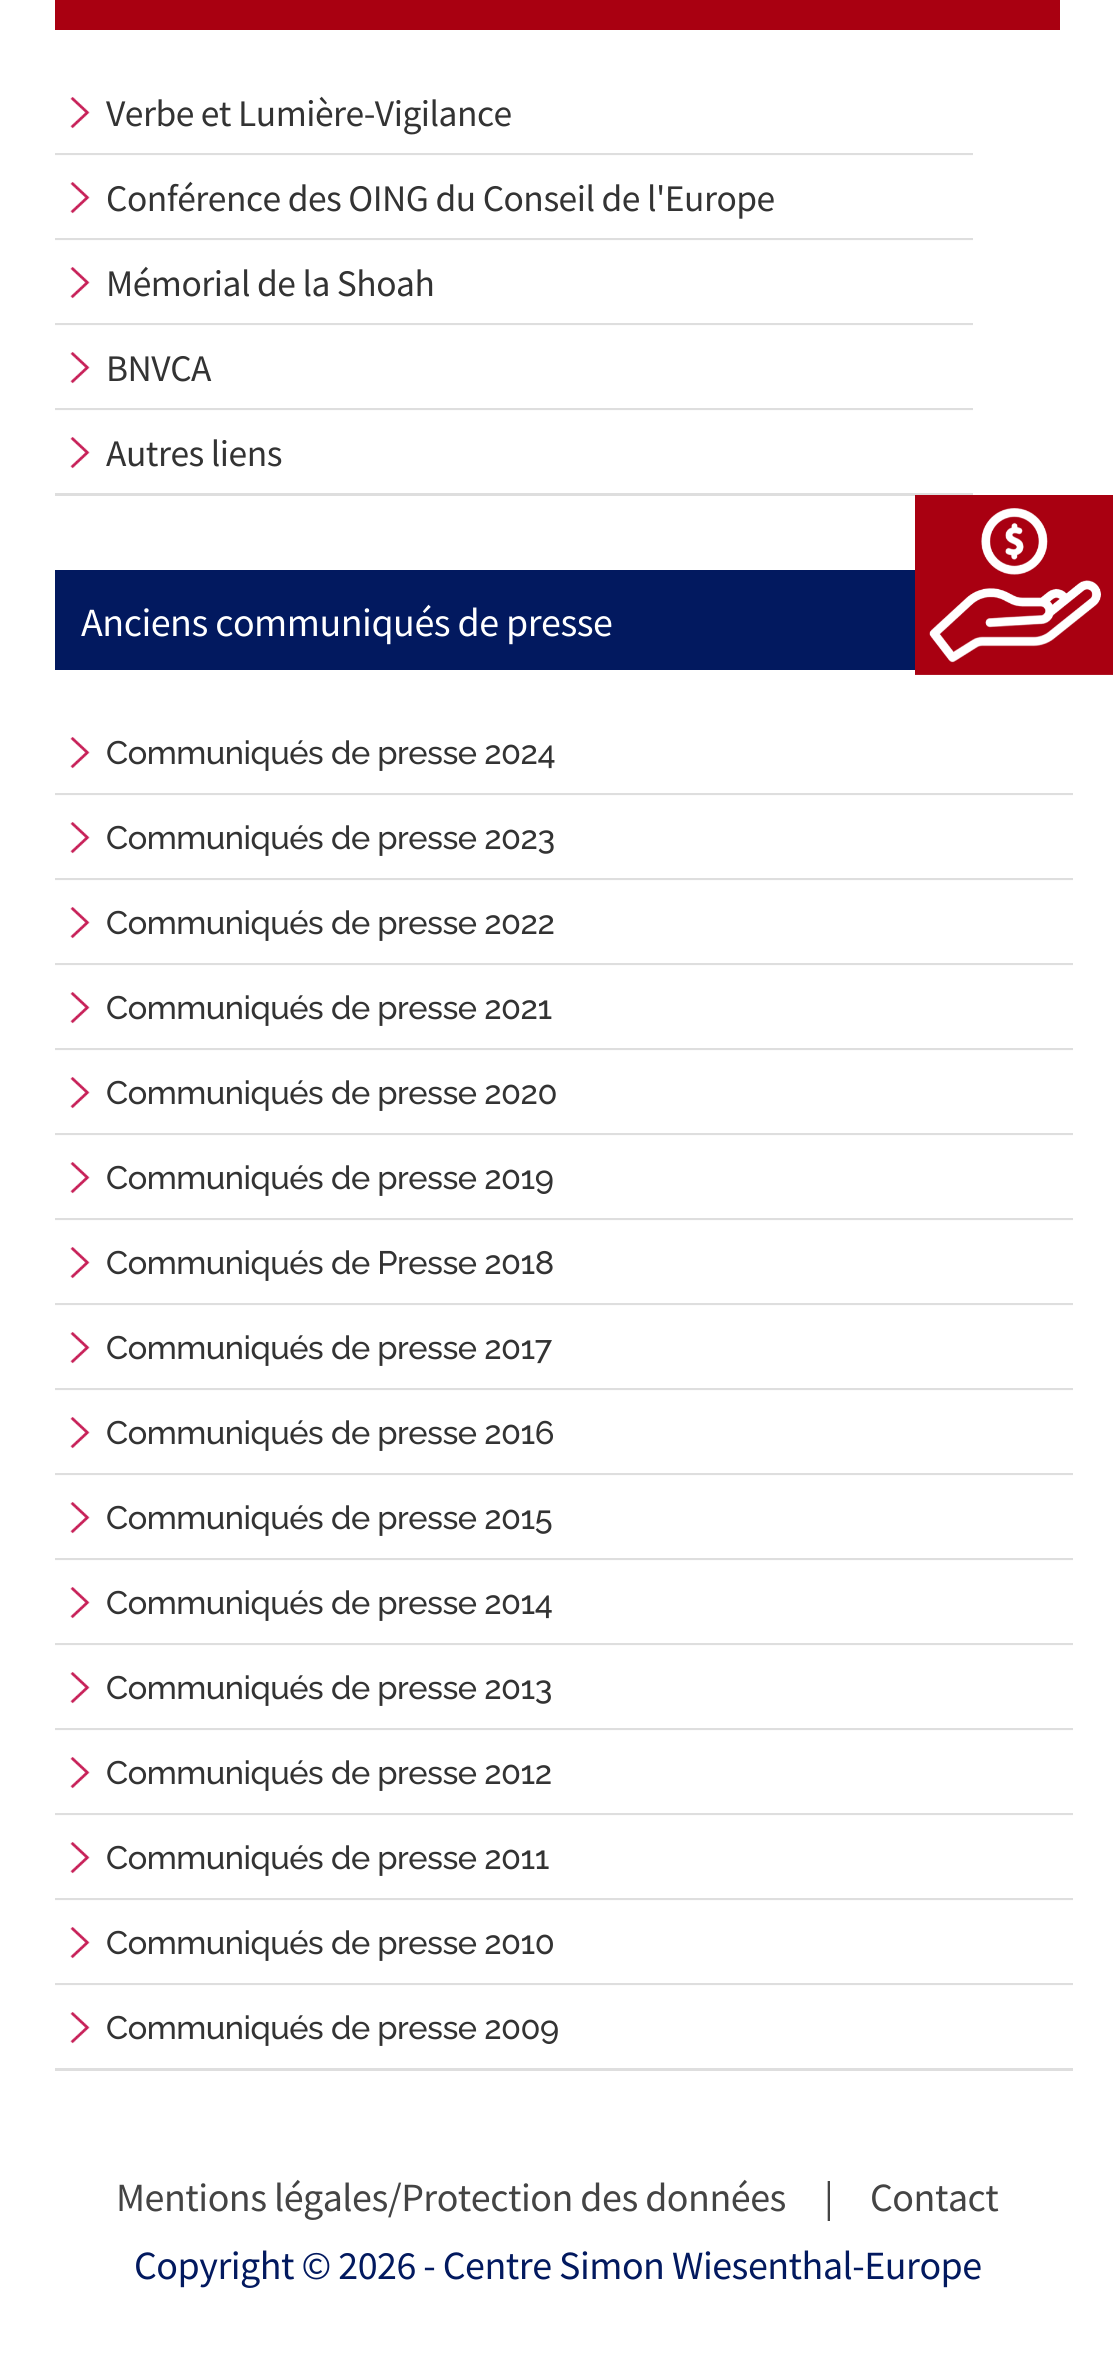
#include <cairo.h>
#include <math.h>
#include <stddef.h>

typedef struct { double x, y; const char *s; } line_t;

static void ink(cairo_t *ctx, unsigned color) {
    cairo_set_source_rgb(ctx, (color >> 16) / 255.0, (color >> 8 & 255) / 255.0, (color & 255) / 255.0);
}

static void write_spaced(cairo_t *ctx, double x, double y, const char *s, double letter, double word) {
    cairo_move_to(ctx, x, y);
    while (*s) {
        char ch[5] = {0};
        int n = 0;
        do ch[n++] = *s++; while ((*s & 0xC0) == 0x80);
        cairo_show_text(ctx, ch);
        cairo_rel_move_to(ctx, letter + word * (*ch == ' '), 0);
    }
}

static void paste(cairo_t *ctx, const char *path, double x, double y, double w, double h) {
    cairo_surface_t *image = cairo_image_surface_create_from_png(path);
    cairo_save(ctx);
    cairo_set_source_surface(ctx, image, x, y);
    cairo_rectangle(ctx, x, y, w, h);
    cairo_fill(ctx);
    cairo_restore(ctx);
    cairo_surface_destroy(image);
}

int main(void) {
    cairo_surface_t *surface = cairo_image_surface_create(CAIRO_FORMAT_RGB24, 1113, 2375);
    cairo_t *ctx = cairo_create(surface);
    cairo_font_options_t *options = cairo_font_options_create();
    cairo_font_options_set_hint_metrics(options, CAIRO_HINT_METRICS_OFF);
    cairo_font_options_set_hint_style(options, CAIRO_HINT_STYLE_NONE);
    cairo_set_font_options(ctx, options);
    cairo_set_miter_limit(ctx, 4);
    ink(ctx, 0xFFFFFF);
    cairo_paint(ctx);
    ink(ctx, 0xA90011);
    cairo_rectangle(ctx, 55, 0, 1005, 30);
    cairo_fill(ctx);
    paste(ctx, "media/1.png", 70, 97, 20, 32);
    ink(ctx, 0xDEDEDE);
    cairo_rectangle(ctx, 55, 153, 918, 2);
    cairo_fill(ctx);
    ink(ctx, 0xFCFCFC);
    cairo_rectangle(ctx, 55, 155, 918, 1);
    cairo_fill(ctx);
    cairo_select_font_face(ctx, "Source Sans Pro", CAIRO_FONT_SLANT_NORMAL, CAIRO_FONT_WEIGHT_NORMAL);
    cairo_set_font_size(ctx, 37.5);
    ink(ctx, 0x333333);
    write_spaced(ctx, 106, 126, "Verbe et Lumière-Vigilance", -0.5, 0);
    paste(ctx, "media/1.png", 70, 182, 20, 32);
    ink(ctx, 0xDEDEDE);
    cairo_rectangle(ctx, 55, 238, 918, 2);
    cairo_fill(ctx);
    ink(ctx, 0xFCFCFC);
    cairo_rectangle(ctx, 55, 240, 918, 1);
    cairo_fill(ctx);
    ink(ctx, 0x333333);
    write_spaced(ctx, 106, 211, "Conférence des OING du Conseil de l'Europe", -0.5, 0);
    paste(ctx, "media/1.png", 70, 267, 20, 32);
    ink(ctx, 0xDEDEDE);
    cairo_rectangle(ctx, 55, 323, 918, 2);
    cairo_fill(ctx);
    ink(ctx, 0xFCFCFC);
    cairo_rectangle(ctx, 55, 325, 918, 1);
    cairo_fill(ctx);
    ink(ctx, 0x333333);
    write_spaced(ctx, 106, 296, "Mémorial de la Shoah", -0.5, 0);
    paste(ctx, "media/1.png", 70, 352, 20, 32);
    ink(ctx, 0xDEDEDE);
    cairo_rectangle(ctx, 55, 408, 918, 2);
    cairo_fill(ctx);
    ink(ctx, 0xFCFCFC);
    cairo_rectangle(ctx, 55, 410, 918, 1);
    cairo_fill(ctx);
    ink(ctx, 0x333333);
    write_spaced(ctx, 106, 381, "BNVCA", -0.5, 0);
    paste(ctx, "media/1.png", 70, 437, 20, 32);
    ink(ctx, 0xDEDEDE);
    cairo_rectangle(ctx, 55, 493, 918, 3);
    cairo_fill(ctx);
    ink(ctx, 0x333333);
    write_spaced(ctx, 106, 466, "Autres liens", -0.5, 0);
    ink(ctx, 0x02195F);
    cairo_rectangle(ctx, 55, 570, 860, 100);
    cairo_fill(ctx);
    cairo_set_font_size(ctx, 40);
    ink(ctx, 0xFFFFFF);
    write_spaced(ctx, 81, 636, "Anciens communiqués de presse", -0.5, 0);
    paste(ctx, "media/1.png", 70, 737, 20, 32);
    ink(ctx, 0xDEDEDE);
    cairo_rectangle(ctx, 55, 793, 1018, 2);
    cairo_fill(ctx);
    ink(ctx, 0xFCFCFC);
    cairo_rectangle(ctx, 55, 795, 1018, 1);
    cairo_fill(ctx);
    cairo_select_font_face(ctx, "Raleway Medium", CAIRO_FONT_SLANT_NORMAL, CAIRO_FONT_WEIGHT_NORMAL);
    cairo_set_font_size(ctx, 32.5);
    ink(ctx, 0x333333);
    write_spaced(ctx, 106, 764, "Communiqués de presse 2024", -0.5, 0);
    paste(ctx, "media/1.png", 70, 822, 20, 32);
    ink(ctx, 0xDEDEDE);
    cairo_rectangle(ctx, 55, 878, 1018, 2);
    cairo_fill(ctx);
    ink(ctx, 0xFCFCFC);
    cairo_rectangle(ctx, 55, 880, 1018, 1);
    cairo_fill(ctx);
    ink(ctx, 0x333333);
    write_spaced(ctx, 106, 849, "Communiqués de presse 2023", -0.5, 0);
    paste(ctx, "media/1.png", 70, 907, 20, 32);
    ink(ctx, 0xDEDEDE);
    cairo_rectangle(ctx, 55, 963, 1018, 2);
    cairo_fill(ctx);
    ink(ctx, 0xFCFCFC);
    cairo_rectangle(ctx, 55, 965, 1018, 1);
    cairo_fill(ctx);
    ink(ctx, 0x333333);
    write_spaced(ctx, 106, 934, "Communiqués de presse 2022", -0.5, 0);
    paste(ctx, "media/1.png", 70, 992, 20, 32);
    ink(ctx, 0xDEDEDE);
    cairo_rectangle(ctx, 55, 1048, 1018, 2);
    cairo_fill(ctx);
    ink(ctx, 0xFCFCFC);
    cairo_rectangle(ctx, 55, 1050, 1018, 1);
    cairo_fill(ctx);
    ink(ctx, 0x333333);
    write_spaced(ctx, 106, 1019, "Communiqués de presse 2021", -0.5, 0);
    paste(ctx, "media/1.png", 70, 1077, 20, 32);
    ink(ctx, 0xDEDEDE);
    cairo_rectangle(ctx, 55, 1133, 1018, 2);
    cairo_fill(ctx);
    ink(ctx, 0xFCFCFC);
    cairo_rectangle(ctx, 55, 1135, 1018, 1);
    cairo_fill(ctx);
    ink(ctx, 0x333333);
    write_spaced(ctx, 106, 1104, "Communiqués de presse 2020", -0.5, 0);
    paste(ctx, "media/1.png", 70, 1162, 20, 32);
    ink(ctx, 0xDEDEDE);
    cairo_rectangle(ctx, 55, 1218, 1018, 2);
    cairo_fill(ctx);
    ink(ctx, 0xFCFCFC);
    cairo_rectangle(ctx, 55, 1220, 1018, 1);
    cairo_fill(ctx);
    ink(ctx, 0x333333);
    write_spaced(ctx, 106, 1189, "Communiqués de presse 2019", -0.5, 0);
    paste(ctx, "media/1.png", 70, 1247, 20, 32);
    ink(ctx, 0xDEDEDE);
    cairo_rectangle(ctx, 55, 1303, 1018, 2);
    cairo_fill(ctx);
    ink(ctx, 0xFCFCFC);
    cairo_rectangle(ctx, 55, 1305, 1018, 1);
    cairo_fill(ctx);
    ink(ctx, 0x333333);
    write_spaced(ctx, 106, 1274, "Communiqués de Presse 2018", -0.5, 0);
    paste(ctx, "media/1.png", 70, 1332, 20, 32);
    ink(ctx, 0xDEDEDE);
    cairo_rectangle(ctx, 55, 1388, 1018, 2);
    cairo_fill(ctx);
    ink(ctx, 0xFCFCFC);
    cairo_rectangle(ctx, 55, 1390, 1018, 1);
    cairo_fill(ctx);
    ink(ctx, 0x333333);
    write_spaced(ctx, 106, 1359, "Communiqués de presse 2017", -0.5, 0);
    paste(ctx, "media/1.png", 70, 1417, 20, 32);
    ink(ctx, 0xDEDEDE);
    cairo_rectangle(ctx, 55, 1473, 1018, 2);
    cairo_fill(ctx);
    ink(ctx, 0xFCFCFC);
    cairo_rectangle(ctx, 55, 1475, 1018, 1);
    cairo_fill(ctx);
    ink(ctx, 0x333333);
    write_spaced(ctx, 106, 1444, "Communiqués de presse 2016", -0.5, 0);
    paste(ctx, "media/1.png", 70, 1502, 20, 32);
    ink(ctx, 0xDEDEDE);
    cairo_rectangle(ctx, 55, 1558, 1018, 2);
    cairo_fill(ctx);
    ink(ctx, 0xFCFCFC);
    cairo_rectangle(ctx, 55, 1560, 1018, 1);
    cairo_fill(ctx);
    ink(ctx, 0x333333);
    write_spaced(ctx, 106, 1529, "Communiqués de presse 2015", -0.5, 0);
    paste(ctx, "media/1.png", 70, 1587, 20, 32);
    ink(ctx, 0xDEDEDE);
    cairo_rectangle(ctx, 55, 1643, 1018, 2);
    cairo_fill(ctx);
    ink(ctx, 0xFCFCFC);
    cairo_rectangle(ctx, 55, 1645, 1018, 1);
    cairo_fill(ctx);
    ink(ctx, 0x333333);
    write_spaced(ctx, 106, 1614, "Communiqués de presse 2014", -0.5, 0);
    paste(ctx, "media/1.png", 70, 1672, 20, 32);
    ink(ctx, 0xDEDEDE);
    cairo_rectangle(ctx, 55, 1728, 1018, 2);
    cairo_fill(ctx);
    ink(ctx, 0xFCFCFC);
    cairo_rectangle(ctx, 55, 1730, 1018, 1);
    cairo_fill(ctx);
    ink(ctx, 0x333333);
    write_spaced(ctx, 106, 1699, "Communiqués de presse 2013", -0.5, 0);
    paste(ctx, "media/1.png", 70, 1757, 20, 32);
    ink(ctx, 0xDEDEDE);
    cairo_rectangle(ctx, 55, 1813, 1018, 2);
    cairo_fill(ctx);
    ink(ctx, 0xFCFCFC);
    cairo_rectangle(ctx, 55, 1815, 1018, 1);
    cairo_fill(ctx);
    ink(ctx, 0x333333);
    write_spaced(ctx, 106, 1784, "Communiqués de presse 2012", -0.5, 0);
    paste(ctx, "media/1.png", 70, 1842, 20, 32);
    ink(ctx, 0xDEDEDE);
    cairo_rectangle(ctx, 55, 1898, 1018, 2);
    cairo_fill(ctx);
    ink(ctx, 0xFCFCFC);
    cairo_rectangle(ctx, 55, 1900, 1018, 1);
    cairo_fill(ctx);
    ink(ctx, 0x333333);
    write_spaced(ctx, 106, 1869, "Communiqués de presse 2011", -0.5, 0);
    paste(ctx, "media/1.png", 70, 1927, 20, 32);
    ink(ctx, 0xDEDEDE);
    cairo_rectangle(ctx, 55, 1983, 1018, 2);
    cairo_fill(ctx);
    ink(ctx, 0xFCFCFC);
    cairo_rectangle(ctx, 55, 1985, 1018, 1);
    cairo_fill(ctx);
    ink(ctx, 0x333333);
    write_spaced(ctx, 106, 1954, "Communiqués de presse 2010", -0.5, 0);
    paste(ctx, "media/1.png", 70, 2012, 20, 32);
    ink(ctx, 0xDEDEDE);
    cairo_rectangle(ctx, 55, 2068, 1018, 3);
    cairo_fill(ctx);
    ink(ctx, 0x333333);
    write_spaced(ctx, 106, 2039, "Communiqués de presse 2009", -0.5, 0);
    paste(ctx, "media/2.png", 915, 495, 198, 180);
    cairo_select_font_face(ctx, "Source Sans Pro", CAIRO_FONT_SLANT_NORMAL, CAIRO_FONT_WEIGHT_NORMAL);
    cairo_set_font_size(ctx, 40);
    ink(ctx, 0x444444);
    {
        static const line_t items[] = {
            {116, 2211, "Mentions légales/Protection des données"},
            {824, 2211, "|"},
            {870, 2211, "Contact"},
        };
        for (size_t i = 0; i < sizeof items / sizeof *items; i++) {
            write_spaced(ctx, items[i].x, items[i].y, items[i].s, -0.5, 0);
        }
    }
    ink(ctx, 0x02195F);
    write_spaced(ctx, 134, 2279, "Copyright © 2026 - Centre Simon Wiesenthal-Europe", -0.5, 0);
    cairo_surface_write_to_png(surface, "image.png");
    cairo_font_options_destroy(options);
    cairo_destroy(ctx);
    cairo_surface_destroy(surface);
    return 0;
}
